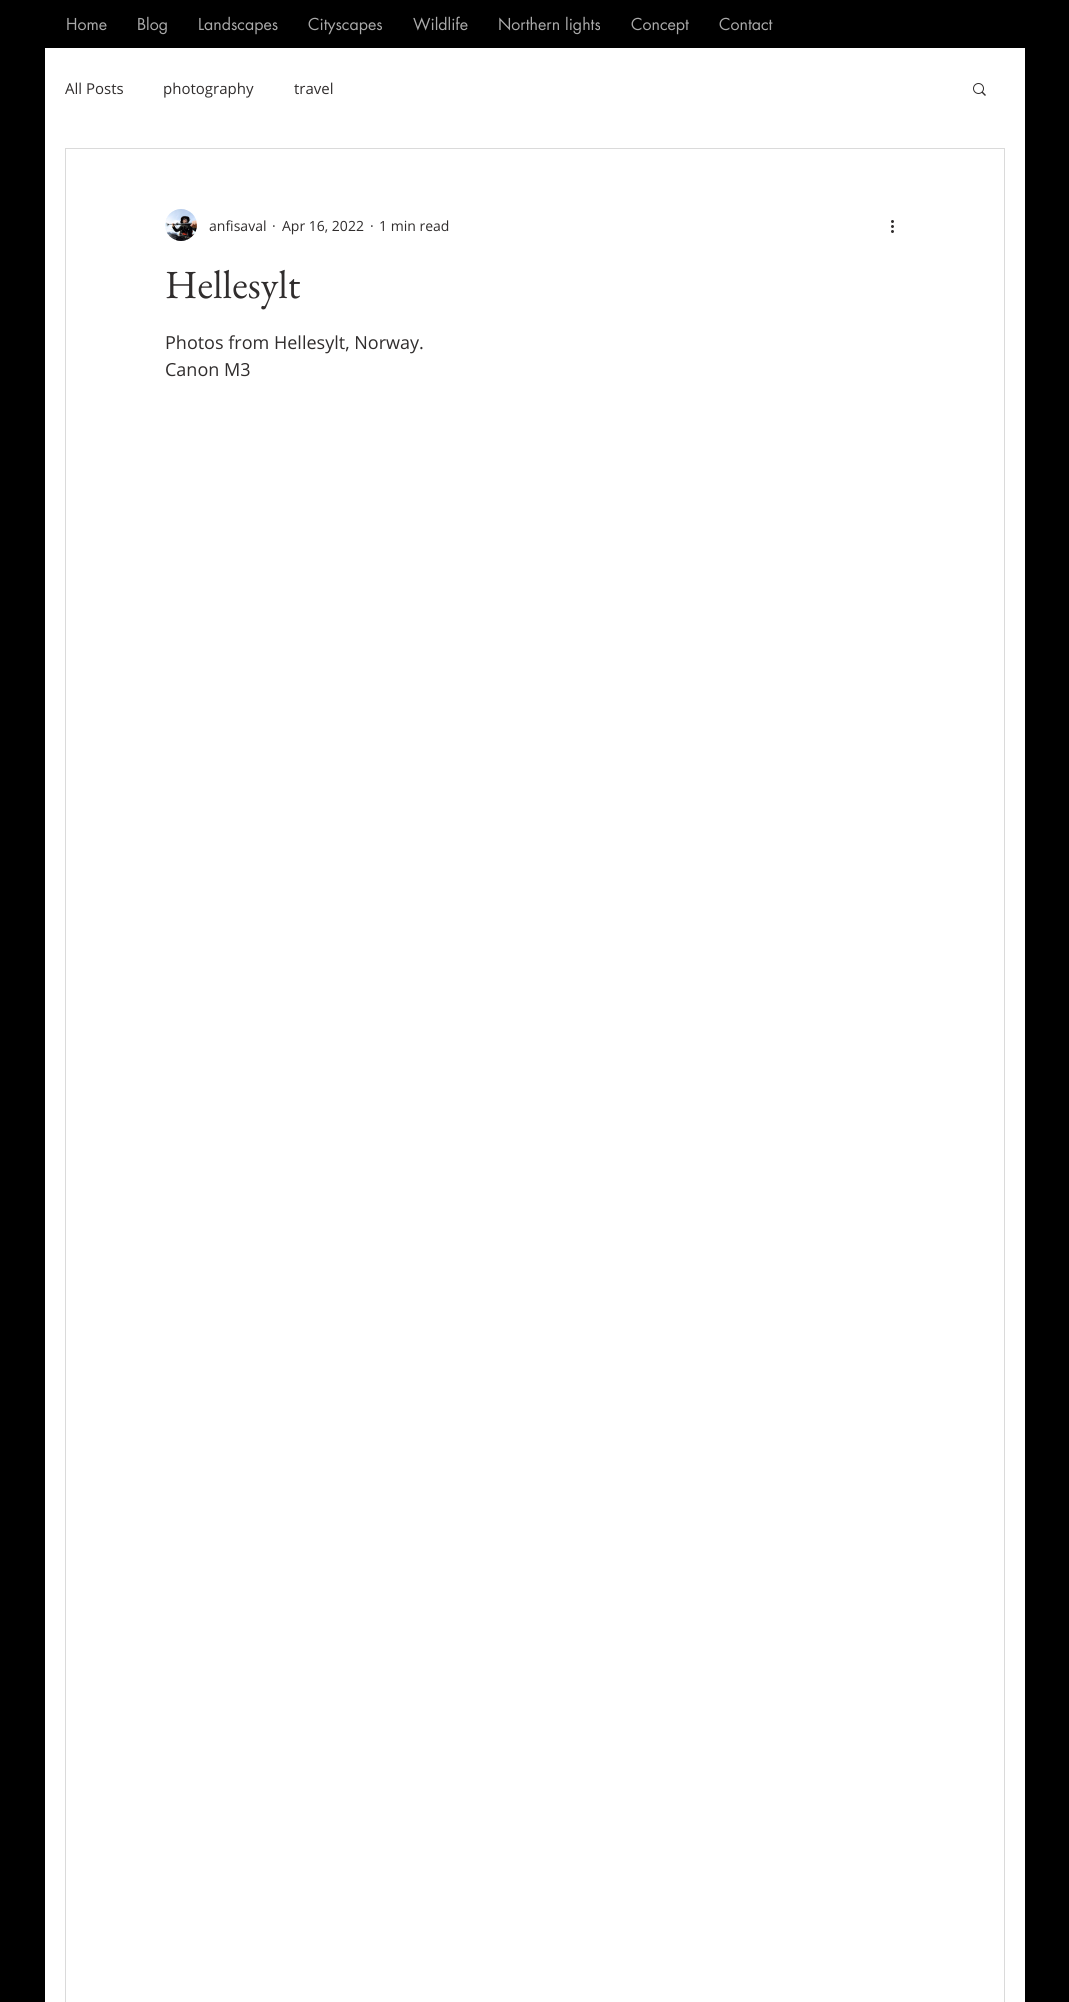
#include <cairo.h>
#include <math.h>
#include <stddef.h>

typedef struct { double x, y; const char *s; } line_t;

static void ink(cairo_t *ctx, unsigned color) {
    cairo_set_source_rgb(ctx, (color >> 16) / 255.0, (color >> 8 & 255) / 255.0, (color & 255) / 255.0);
}

static void paste(cairo_t *ctx, const char *path, double x, double y, double w, double h) {
    cairo_surface_t *image = cairo_image_surface_create_from_png(path);
    cairo_save(ctx);
    cairo_set_source_surface(ctx, image, x, y);
    cairo_rectangle(ctx, x, y, w, h);
    cairo_fill(ctx);
    cairo_restore(ctx);
    cairo_surface_destroy(image);
}

int main(void) {
    cairo_surface_t *surface = cairo_image_surface_create(CAIRO_FORMAT_RGB24, 1069, 2002);
    cairo_t *ctx = cairo_create(surface);
    cairo_font_options_t *options = cairo_font_options_create();
    cairo_font_options_set_hint_metrics(options, CAIRO_HINT_METRICS_OFF);
    cairo_font_options_set_hint_style(options, CAIRO_HINT_STYLE_NONE);
    cairo_set_font_options(ctx, options);
    cairo_set_miter_limit(ctx, 4);
    ink(ctx, 0x000000);
    cairo_paint(ctx);
    cairo_select_font_face(ctx, "futura", CAIRO_FONT_SLANT_NORMAL, CAIRO_FONT_WEIGHT_NORMAL);
    cairo_set_font_size(ctx, 16);
    ink(ctx, 0xAAAAAA);
    {
        static const line_t items[] = {
            {66, 30, "Home"},
            {137, 30, "Blog"},
            {198, 30, "Landscapes"},
            {308, 30, "Cityscapes"},
            {413, 30, "Wildlife"},
            {498, 30, "Northern lights"},
            {631, 30, "Concept"},
            {719, 30, "Contact"},
        };
        for (size_t i = 0; i < sizeof items / sizeof *items; i++) {
            cairo_move_to(ctx, items[i].x, items[i].y);
            cairo_show_text(ctx, items[i].s);
        }
    }
    ink(ctx, 0xFFFFFF);
    cairo_rectangle(ctx, 45, 48, 980, 1954);
    cairo_fill(ctx);
    cairo_select_font_face(ctx, "Open Sans", CAIRO_FONT_SLANT_NORMAL, CAIRO_FONT_WEIGHT_NORMAL);
    cairo_set_font_size(ctx, 15);
    ink(ctx, 0x302D2D);
    {
        static const line_t items[] = {
            {65, 94, "All Posts"},
            {163, 94, "photography"},
            {294, 94, "travel"},
        };
        for (size_t i = 0; i < sizeof items / sizeof *items; i++) {
            cairo_move_to(ctx, items[i].x, items[i].y);
            cairo_show_text(ctx, items[i].s);
        }
    }
    paste(ctx, "media/1.png", 973, 83, 13, 13);
    cairo_rectangle(ctx, 65.5, 148.5, 939, 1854);
    ink(ctx, 0xDADADA);
    cairo_set_line_width(ctx, 1);
    cairo_stroke(ctx);
    paste(ctx, "media/2.png", 165, 209, 32, 32);
    cairo_set_font_size(ctx, 14);
    ink(ctx, 0x302D2D);
    {
        static const line_t items[] = {
            {209, 231, "anfisaval"},
            {272, 231, "·"},
            {282, 231, "Apr 16, 2022"},
            {370, 231, "·"},
            {379, 231, "1 min read"},
        };
        for (size_t i = 0; i < sizeof items / sizeof *items; i++) {
            cairo_move_to(ctx, items[i].x, items[i].y);
            cairo_show_text(ctx, items[i].s);
        }
    }
    paste(ctx, "media/3.png", 891, 220, 3, 13);
    cairo_select_font_face(ctx, "EB Garamond", CAIRO_FONT_SLANT_NORMAL, CAIRO_FONT_WEIGHT_NORMAL);
    cairo_set_font_size(ctx, 40);
    cairo_move_to(ctx, 165, 298);
    cairo_show_text(ctx, "Hellesylt");
    cairo_select_font_face(ctx, "Open Sans", CAIRO_FONT_SLANT_NORMAL, CAIRO_FONT_WEIGHT_NORMAL);
    cairo_set_font_size(ctx, 18);
    cairo_move_to(ctx, 165, 349);
    cairo_show_text(ctx, "Photos from Hellesylt, Norway.");
    cairo_move_to(ctx, 165, 376);
    cairo_show_text(ctx, "Canon M3");
    cairo_surface_write_to_png(surface, "image.png");
    cairo_font_options_destroy(options);
    cairo_destroy(ctx);
    cairo_surface_destroy(surface);
    return 0;
}
